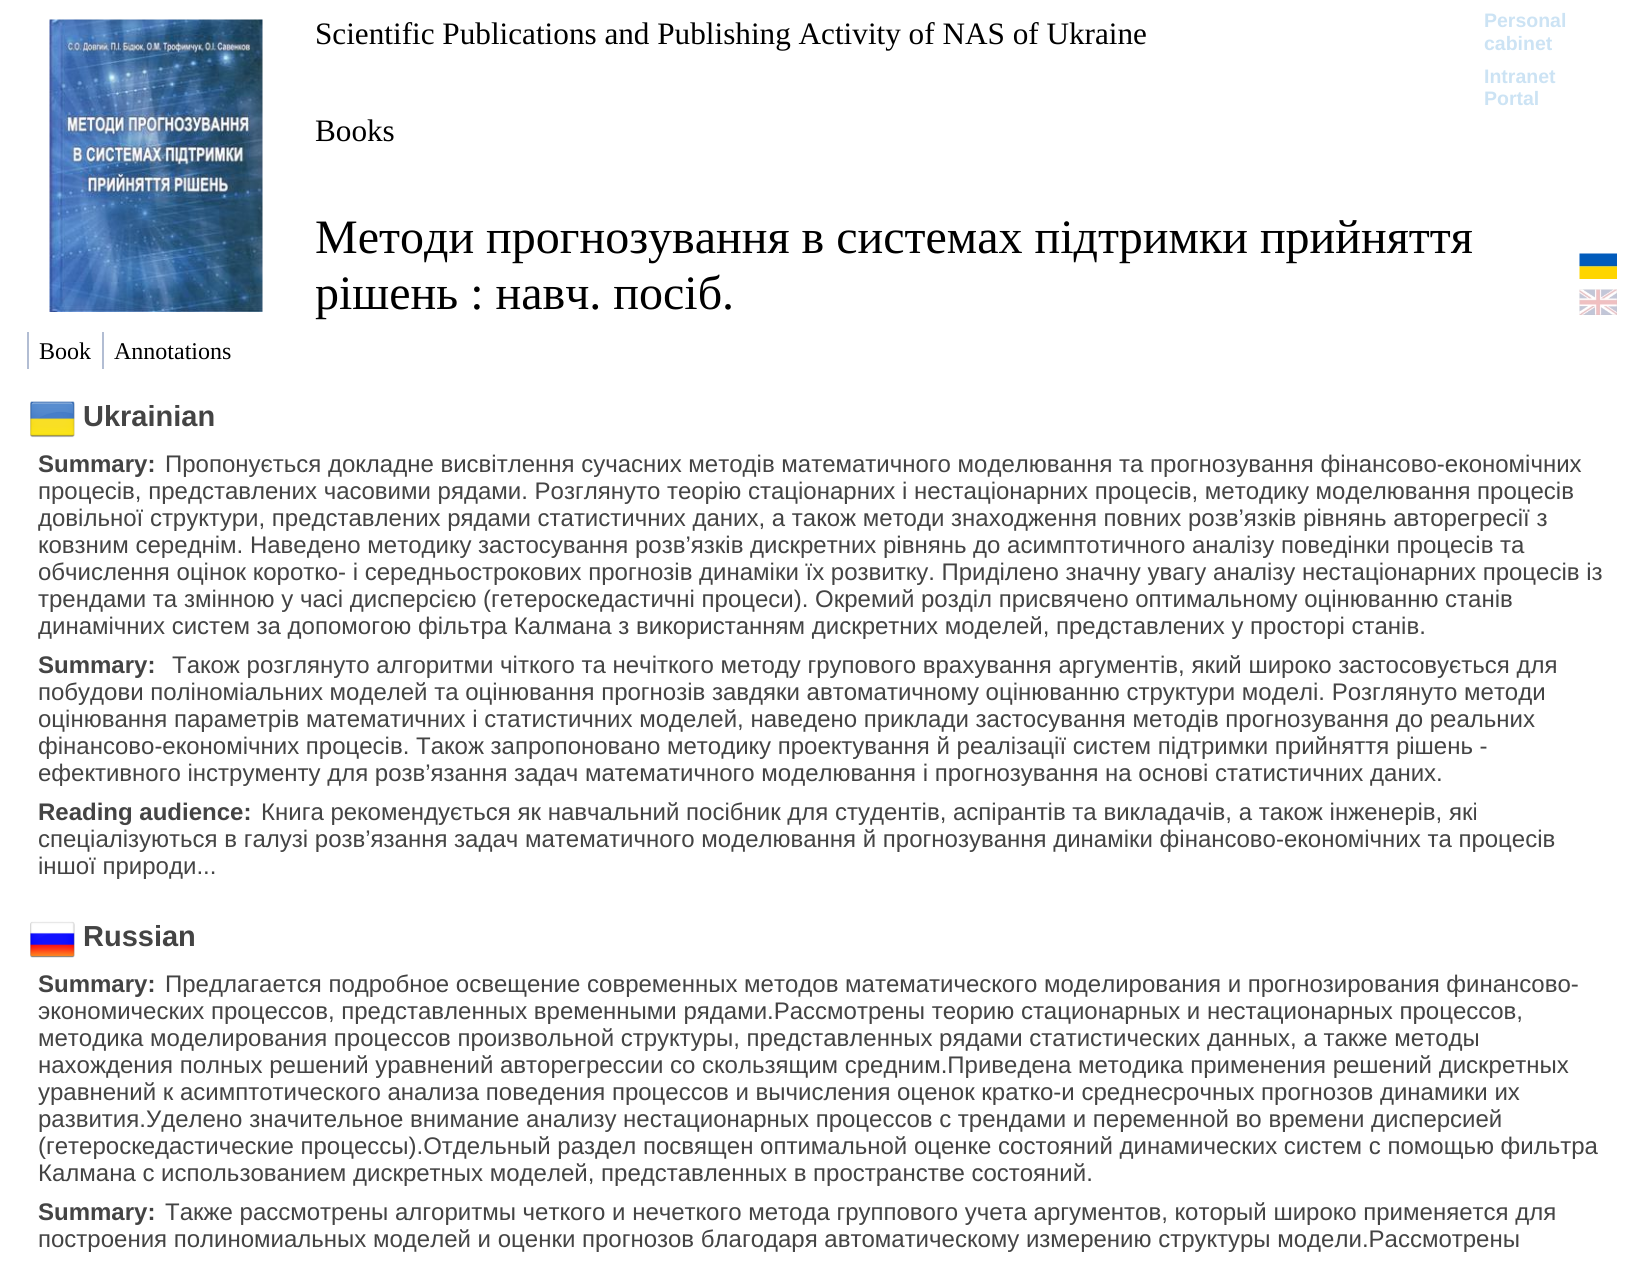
#include <cairo.h>
#include <math.h>
#include <stddef.h>

typedef struct { double x, y; const char *s; } line_t;

static void ink(cairo_t *ctx, unsigned color) {
    cairo_set_source_rgb(ctx, (color >> 16) / 255.0, (color >> 8 & 255) / 255.0, (color & 255) / 255.0);
}

static void paste(cairo_t *ctx, const char *path, double x, double y, double w, double h) {
    cairo_surface_t *image = cairo_image_surface_create_from_png(path);
    cairo_save(ctx);
    cairo_set_source_surface(ctx, image, x, y);
    cairo_rectangle(ctx, x, y, w, h);
    cairo_fill(ctx);
    cairo_restore(ctx);
    cairo_surface_destroy(image);
}

int main(void) {
    cairo_surface_t *surface = cairo_image_surface_create(CAIRO_FORMAT_RGB24, 1630, 1261);
    cairo_t *ctx = cairo_create(surface);
    cairo_font_options_t *options = cairo_font_options_create();
    cairo_font_options_set_hint_metrics(options, CAIRO_HINT_METRICS_OFF);
    cairo_font_options_set_hint_style(options, CAIRO_HINT_STYLE_NONE);
    cairo_set_font_options(ctx, options);
    cairo_set_miter_limit(ctx, 4);
    ink(ctx, 0xFFFFFF);
    cairo_paint(ctx);
    paste(ctx, "media/1.png", 49, 19, 214, 293);
    cairo_select_font_face(ctx, "Liberation Serif", CAIRO_FONT_SLANT_NORMAL, CAIRO_FONT_WEIGHT_NORMAL);
    cairo_set_font_size(ctx, 31.2);
    ink(ctx, 0x000000);
    cairo_move_to(ctx, 315, 44);
    cairo_show_text(ctx, "Scientific Publications and Publishing Activity of NAS of Ukraine");
    cairo_select_font_face(ctx, "Liberation Sans", CAIRO_FONT_SLANT_NORMAL, CAIRO_FONT_WEIGHT_BOLD);
    cairo_set_font_size(ctx, 19.5);
    ink(ctx, 0xCCE3F4);
    {
        static const line_t items[] = {
            {1484, 27, "Personal"},
            {1484, 50, "cabinet"},
            {1484, 83, "Intranet"},
            {1484, 105, "Portal"},
        };
        for (size_t i = 0; i < sizeof items / sizeof *items; i++) {
            cairo_move_to(ctx, items[i].x, items[i].y);
            cairo_show_text(ctx, items[i].s);
        }
    }
    cairo_select_font_face(ctx, "Liberation Serif", CAIRO_FONT_SLANT_NORMAL, CAIRO_FONT_WEIGHT_NORMAL);
    cairo_set_font_size(ctx, 31.2);
    ink(ctx, 0x000000);
    cairo_move_to(ctx, 315, 141);
    cairo_show_text(ctx, "Books");
    paste(ctx, "media/2.png", 1579, 253, 38, 26);
    paste(ctx, "media/3.png", 1579, 289, 38, 26);
    cairo_set_font_size(ctx, 48);
    cairo_move_to(ctx, 315, 253);
    cairo_show_text(ctx, "Методи прогнозування в системах підтримки прийняття");
    cairo_move_to(ctx, 315, 309);
    cairo_show_text(ctx, "рішень : навч. посіб.");
    ink(ctx, 0xB2BDD3);
    cairo_rectangle(ctx, 27, 332, 2, 37);
    cairo_fill(ctx);
    cairo_set_font_size(ctx, 24);
    ink(ctx, 0x000000);
    cairo_move_to(ctx, 39, 359);
    cairo_show_text(ctx, "Book");
    ink(ctx, 0xB2BDD3);
    cairo_rectangle(ctx, 102, 332, 2, 37);
    cairo_fill(ctx);
    ink(ctx, 0x000000);
    cairo_move_to(ctx, 114, 359);
    cairo_show_text(ctx, "Annotations");
    paste(ctx, "media/4.png", 30, 401, 45, 37);
    cairo_select_font_face(ctx, "Liberation Sans", CAIRO_FONT_SLANT_NORMAL, CAIRO_FONT_WEIGHT_BOLD);
    cairo_set_font_size(ctx, 29);
    ink(ctx, 0x444444);
    cairo_move_to(ctx, 83, 426);
    cairo_show_text(ctx, "Ukrainian");
    cairo_set_font_size(ctx, 24);
    cairo_move_to(ctx, 38, 472);
    cairo_show_text(ctx, "Summary:");
    cairo_select_font_face(ctx, "Liberation Sans", CAIRO_FONT_SLANT_NORMAL, CAIRO_FONT_WEIGHT_NORMAL);
    {
        static const line_t items[] = {
            {165, 472, "Пропонується докладне висвітлення сучасних методів математичного моделювання та прогнозування фінансово-економічних"},
            {38, 499, "процесів, представлених часовими рядами. Розглянуто теорію стаціонарних і нестаціонарних процесів, методику моделювання процесів"},
            {38, 526, "довільної структури, представлених рядами статистичних даних, а також методи знаходження повних розв’язків рівнянь авторегресії з"},
            {38, 553, "ковзним середнім. Наведено методику застосування розв’язків дискретних рівнянь до асимптотичного аналізу поведінки процесів та"},
            {38, 580, "обчислення оцінок коротко- і середньострокових прогнозів динаміки їх розвитку. Приділено значну увагу аналізу нестаціонарних процесів із"},
            {38, 607, "трендами та змінною у часі дисперсією (гетероскедастичні процеси). Окремий розділ присвячено оптимальному оцінюванню станів"},
            {38, 634, "динамічних систем за допомогою фільтра Калмана з використанням дискретних моделей, представлених у просторі станів."},
        };
        for (size_t i = 0; i < sizeof items / sizeof *items; i++) {
            cairo_move_to(ctx, items[i].x, items[i].y);
            cairo_show_text(ctx, items[i].s);
        }
    }
    cairo_select_font_face(ctx, "Liberation Sans", CAIRO_FONT_SLANT_NORMAL, CAIRO_FONT_WEIGHT_BOLD);
    cairo_move_to(ctx, 38, 673);
    cairo_show_text(ctx, "Summary:");
    cairo_select_font_face(ctx, "Liberation Sans", CAIRO_FONT_SLANT_NORMAL, CAIRO_FONT_WEIGHT_NORMAL);
    {
        static const line_t items[] = {
            {172, 673, "Також розглянуто алгоритми чіткого та нечіткого методу групового врахування аргументів, який широко застосовується для"},
            {38, 700, "побудови поліноміальних моделей та оцінювання прогнозів завдяки автоматичному оцінюванню структури моделі. Розглянуто методи"},
            {38, 727, "оцінювання параметрів математичних і статистичних моделей, наведено приклади застосування методів прогнозування до реальних"},
            {38, 754, "фінансово-економічних процесів. Також запропоновано методику проектування й реалізації систем підтримки прийняття рішень -"},
            {38, 781, "ефективного інструменту для розв’язання задач математичного моделювання і прогнозування на основі статистичних даних."},
        };
        for (size_t i = 0; i < sizeof items / sizeof *items; i++) {
            cairo_move_to(ctx, items[i].x, items[i].y);
            cairo_show_text(ctx, items[i].s);
        }
    }
    cairo_select_font_face(ctx, "Liberation Sans", CAIRO_FONT_SLANT_NORMAL, CAIRO_FONT_WEIGHT_BOLD);
    cairo_move_to(ctx, 38, 820);
    cairo_show_text(ctx, "Reading audience:");
    cairo_select_font_face(ctx, "Liberation Sans", CAIRO_FONT_SLANT_NORMAL, CAIRO_FONT_WEIGHT_NORMAL);
    {
        static const line_t items[] = {
            {261, 820, "Книга рекомендується як навчальний посібник для студентів, аспірантів та викладачів, а також інженерів, які"},
            {38, 847, "спеціалізуються в галузі розв’язання задач математичного моделювання й прогнозування динаміки фінансово-економічних та процесів"},
            {38, 874, "іншої природи..."},
        };
        for (size_t i = 0; i < sizeof items / sizeof *items; i++) {
            cairo_move_to(ctx, items[i].x, items[i].y);
            cairo_show_text(ctx, items[i].s);
        }
    }
    paste(ctx, "media/5.png", 30, 921, 45, 37);
    cairo_select_font_face(ctx, "Liberation Sans", CAIRO_FONT_SLANT_NORMAL, CAIRO_FONT_WEIGHT_BOLD);
    cairo_set_font_size(ctx, 29);
    cairo_move_to(ctx, 83, 946);
    cairo_show_text(ctx, "Russian");
    cairo_set_font_size(ctx, 24);
    cairo_move_to(ctx, 38, 992);
    cairo_show_text(ctx, "Summary:");
    cairo_select_font_face(ctx, "Liberation Sans", CAIRO_FONT_SLANT_NORMAL, CAIRO_FONT_WEIGHT_NORMAL);
    {
        static const line_t items[] = {
            {165, 992, "Предлагается подробное освещение современных методов математического моделирования и прогнозирования финансово-"},
            {38, 1019, "экономических процессов, представленных временными рядами.Рассмотрены теорию стационарных и нестационарных процессов,"},
            {38, 1046, "методика моделирования процессов произвольной структуры, представленных рядами статистических данных, а также методы"},
            {38, 1073, "нахождения полных решений уравнений авторегрессии со скользящим средним.Приведена методика применения решений дискретных"},
            {38, 1100, "уравнений к асимптотического анализа поведения процессов и вычисления оценок кратко-и среднесрочных прогнозов динамики их"},
            {38, 1127, "развития.Уделено значительное внимание анализу нестационарных процессов с трендами и переменной во времени дисперсией"},
            {38, 1154, "(гетероскедастические процессы).Отдельный раздел посвящен оптимальной оценке состояний динамических систем с помощью фильтра"},
            {38, 1181, "Калмана с использованием дискретных моделей, представленных в пространстве состояний."},
        };
        for (size_t i = 0; i < sizeof items / sizeof *items; i++) {
            cairo_move_to(ctx, items[i].x, items[i].y);
            cairo_show_text(ctx, items[i].s);
        }
    }
    cairo_select_font_face(ctx, "Liberation Sans", CAIRO_FONT_SLANT_NORMAL, CAIRO_FONT_WEIGHT_BOLD);
    cairo_move_to(ctx, 38, 1220);
    cairo_show_text(ctx, "Summary:");
    cairo_select_font_face(ctx, "Liberation Sans", CAIRO_FONT_SLANT_NORMAL, CAIRO_FONT_WEIGHT_NORMAL);
    cairo_move_to(ctx, 165, 1220);
    cairo_show_text(ctx, "Также рассмотрены алгоритмы четкого и нечеткого метода группового учета аргументов, который широко применяется для");
    cairo_move_to(ctx, 38, 1247);
    cairo_show_text(ctx, "построения полиномиальных моделей и оценки прогнозов благодаря автоматическому измерению структуры модели.Рассмотрены");
    cairo_surface_write_to_png(surface, "image.png");
    cairo_font_options_destroy(options);
    cairo_destroy(ctx);
    cairo_surface_destroy(surface);
    return 0;
}
